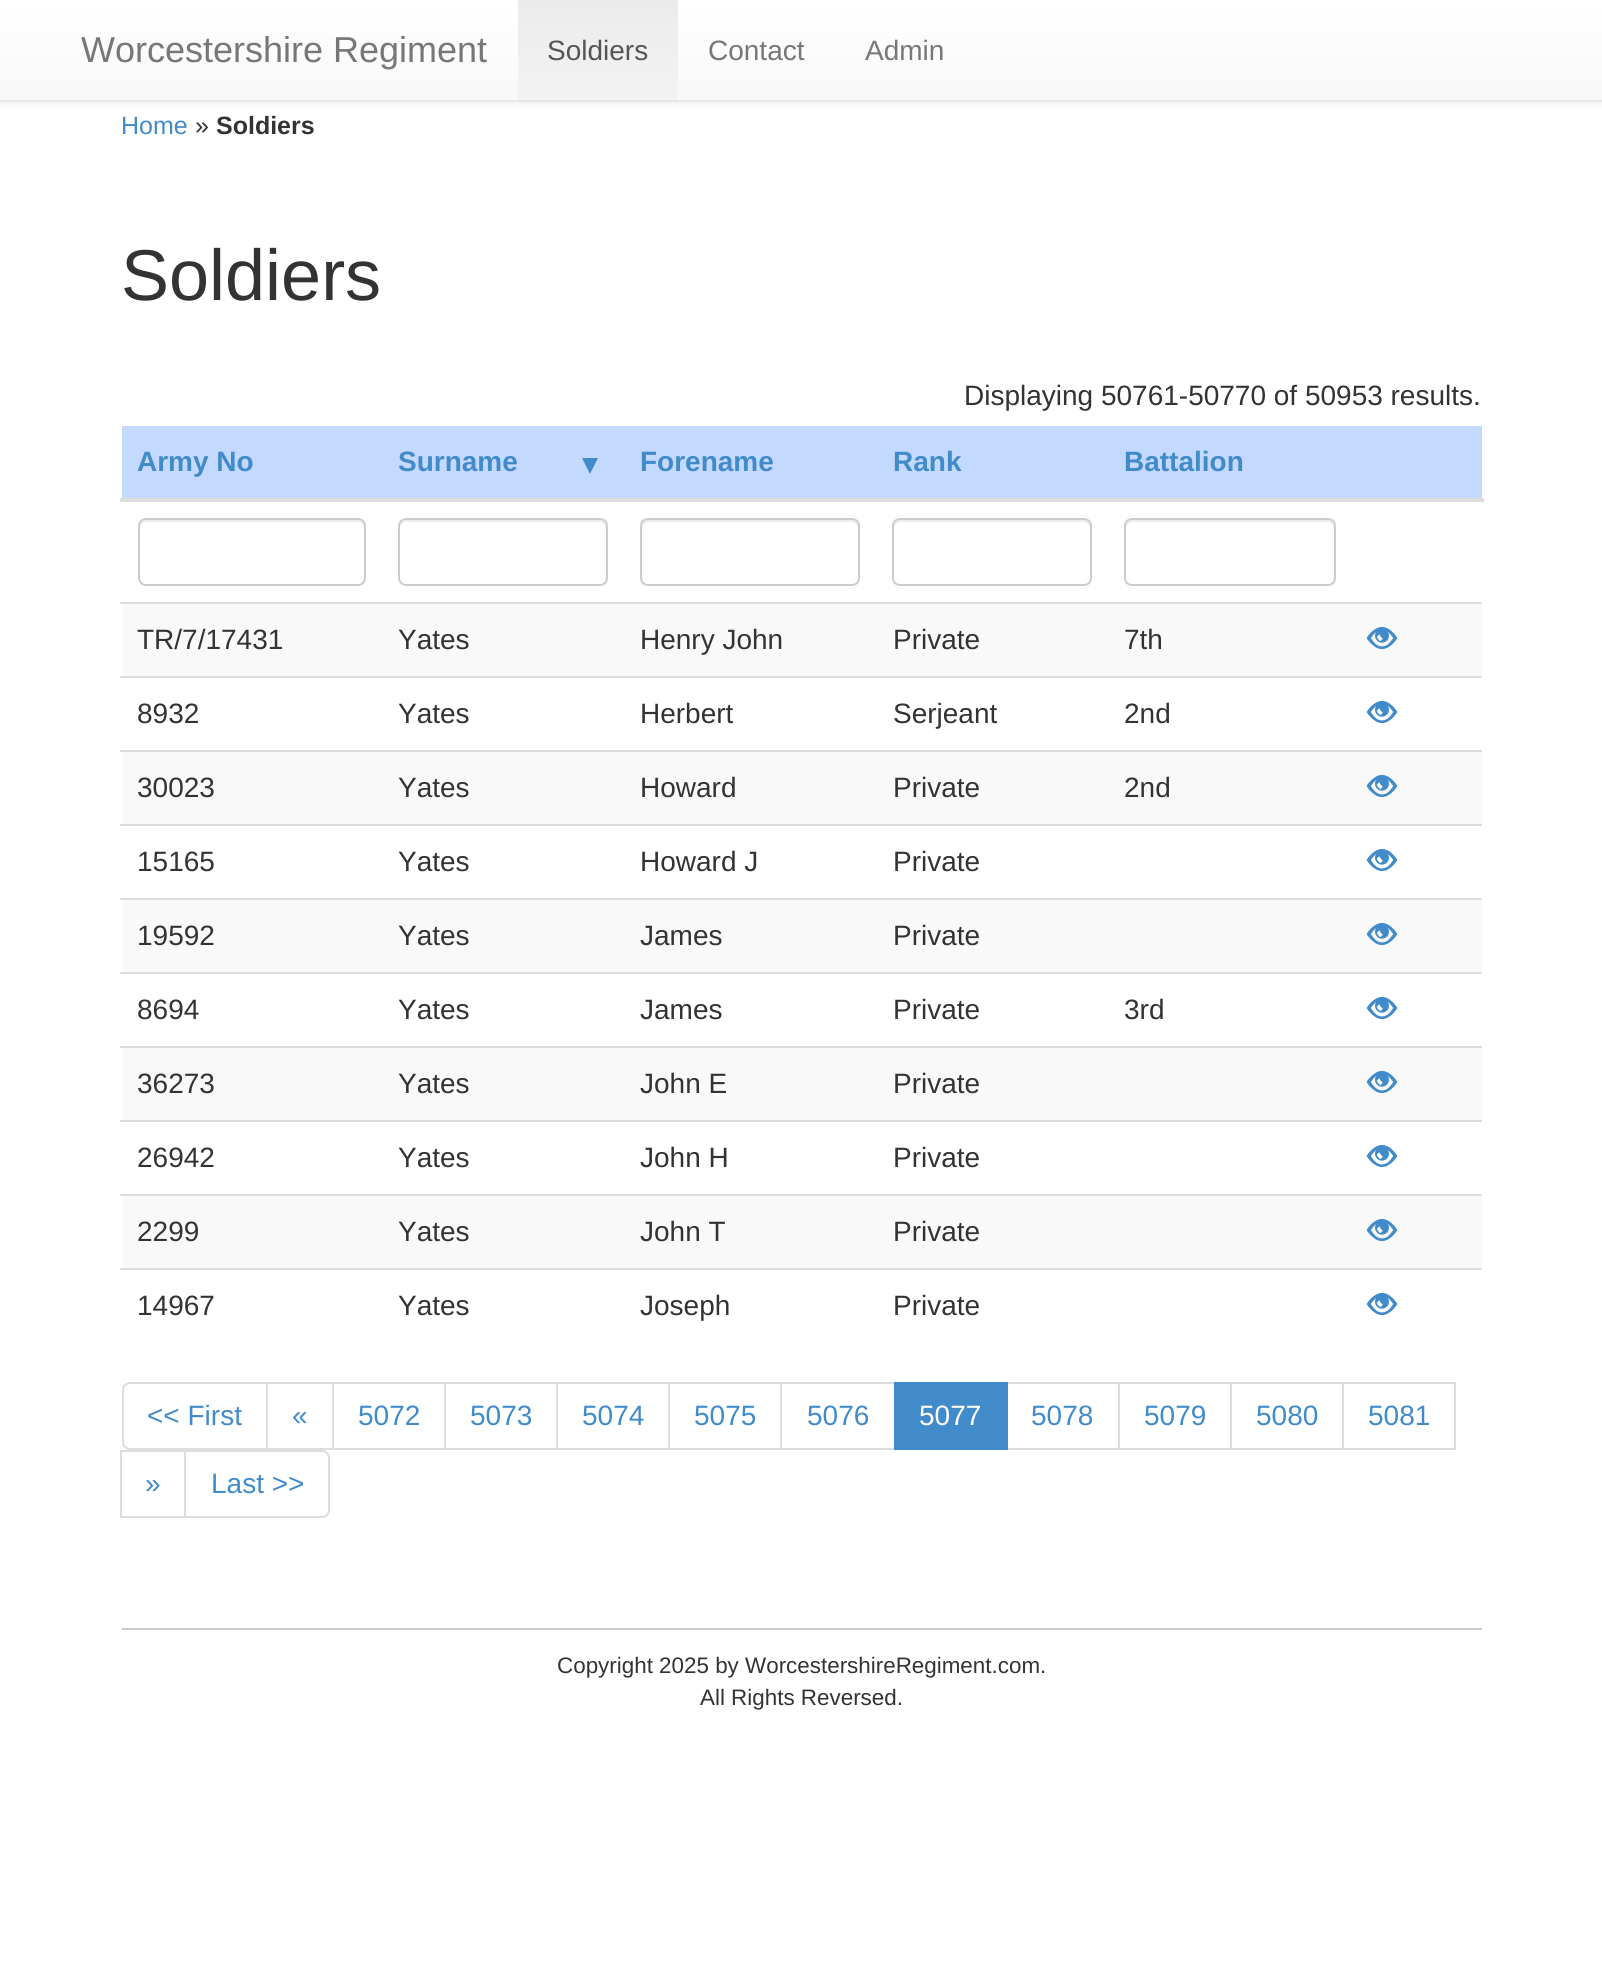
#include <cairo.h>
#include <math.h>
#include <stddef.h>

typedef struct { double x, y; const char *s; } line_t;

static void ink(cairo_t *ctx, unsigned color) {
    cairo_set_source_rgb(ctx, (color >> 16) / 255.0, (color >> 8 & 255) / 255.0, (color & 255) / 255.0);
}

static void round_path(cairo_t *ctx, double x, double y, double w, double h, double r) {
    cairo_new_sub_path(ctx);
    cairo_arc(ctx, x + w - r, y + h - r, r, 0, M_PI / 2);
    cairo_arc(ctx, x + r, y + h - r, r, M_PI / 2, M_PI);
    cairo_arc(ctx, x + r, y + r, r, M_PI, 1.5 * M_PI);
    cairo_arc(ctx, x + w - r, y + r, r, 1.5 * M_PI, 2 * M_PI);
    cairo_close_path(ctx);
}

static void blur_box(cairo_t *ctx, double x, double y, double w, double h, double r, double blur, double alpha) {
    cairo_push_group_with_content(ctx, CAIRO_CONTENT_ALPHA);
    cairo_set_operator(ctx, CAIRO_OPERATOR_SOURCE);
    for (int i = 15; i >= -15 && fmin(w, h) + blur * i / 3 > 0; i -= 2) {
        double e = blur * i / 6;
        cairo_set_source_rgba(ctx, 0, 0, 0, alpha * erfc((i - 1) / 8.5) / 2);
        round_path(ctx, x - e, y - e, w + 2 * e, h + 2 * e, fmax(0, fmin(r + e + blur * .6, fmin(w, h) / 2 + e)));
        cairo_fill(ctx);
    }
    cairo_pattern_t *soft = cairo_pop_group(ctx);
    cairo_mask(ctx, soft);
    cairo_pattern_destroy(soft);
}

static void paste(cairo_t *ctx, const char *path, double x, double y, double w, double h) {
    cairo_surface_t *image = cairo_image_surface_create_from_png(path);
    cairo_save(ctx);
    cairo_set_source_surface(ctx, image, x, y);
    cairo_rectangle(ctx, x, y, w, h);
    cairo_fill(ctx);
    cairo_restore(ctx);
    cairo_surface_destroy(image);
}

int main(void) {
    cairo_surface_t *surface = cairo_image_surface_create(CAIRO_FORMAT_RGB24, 1602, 1973);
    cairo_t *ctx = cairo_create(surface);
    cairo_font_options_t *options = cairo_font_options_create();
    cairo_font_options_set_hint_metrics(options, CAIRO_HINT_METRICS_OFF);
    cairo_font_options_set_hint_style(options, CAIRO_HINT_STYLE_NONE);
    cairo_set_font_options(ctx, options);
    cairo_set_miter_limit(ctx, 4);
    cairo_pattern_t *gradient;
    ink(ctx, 0xFFFFFF);
    cairo_paint(ctx);
    ink(ctx, 0x000000);
    blur_box(ctx, 0, 2, 1602, 102, 0, 5, 0.07);
    gradient = cairo_pattern_create_linear(801, 0, 801, 100);
    cairo_pattern_add_color_stop_rgba(gradient, 0, 1, 1, 1, 1);
    cairo_pattern_add_color_stop_rgba(gradient, 1, 0.973, 0.973, 0.973, 1);
    cairo_set_source(ctx, gradient);
    cairo_pattern_destroy(gradient);
    cairo_rectangle(ctx, 0, 0, 1602, 100);
    cairo_fill(ctx);
    ink(ctx, 0xE7E7E7);
    cairo_rectangle(ctx, 0, 100, 1602, 2);
    cairo_fill(ctx);
    cairo_select_font_face(ctx, "Liberation Sans", CAIRO_FONT_SLANT_NORMAL, CAIRO_FONT_WEIGHT_NORMAL);
    cairo_set_font_size(ctx, 36);
    ink(ctx, 0x777777);
    cairo_move_to(ctx, 81, 62);
    cairo_show_text(ctx, "Worcestershire Regiment");
    gradient = cairo_pattern_create_linear(598, 0, 598, 100);
    cairo_pattern_add_color_stop_rgba(gradient, 0, 0.922, 0.922, 0.922, 1);
    cairo_pattern_add_color_stop_rgba(gradient, 1, 0.953, 0.953, 0.953, 1);
    cairo_set_source(ctx, gradient);
    cairo_pattern_destroy(gradient);
    cairo_rectangle(ctx, 518, 0, 160, 100);
    cairo_fill(ctx);
    cairo_set_font_size(ctx, 28);
    ink(ctx, 0x555555);
    cairo_move_to(ctx, 547, 60);
    cairo_show_text(ctx, "Soldiers");
    ink(ctx, 0x777777);
    cairo_move_to(ctx, 708, 60);
    cairo_show_text(ctx, "Contact");
    cairo_move_to(ctx, 865, 60);
    cairo_show_text(ctx, "Admin");
    cairo_set_font_size(ctx, 25);
    ink(ctx, 0x428BCA);
    cairo_move_to(ctx, 121, 134);
    cairo_show_text(ctx, "Home");
    ink(ctx, 0x333333);
    cairo_move_to(ctx, 195, 134);
    cairo_show_text(ctx, "»");
    cairo_select_font_face(ctx, "Liberation Sans", CAIRO_FONT_SLANT_NORMAL, CAIRO_FONT_WEIGHT_BOLD);
    cairo_move_to(ctx, 216, 134);
    cairo_show_text(ctx, "Soldiers");
    cairo_select_font_face(ctx, "Liberation Sans", CAIRO_FONT_SLANT_NORMAL, CAIRO_FONT_WEIGHT_NORMAL);
    cairo_set_font_size(ctx, 72);
    cairo_move_to(ctx, 121, 300);
    cairo_show_text(ctx, "Soldiers");
    cairo_set_font_size(ctx, 28);
    cairo_move_to(ctx, 964, 405);
    cairo_show_text(ctx, "Displaying 50761-50770 of 50953 results.");
    ink(ctx, 0xC3D9FF);
    cairo_rectangle(ctx, 122, 426, 1360, 72);
    cairo_fill(ctx);
    cairo_select_font_face(ctx, "Liberation Sans", CAIRO_FONT_SLANT_NORMAL, CAIRO_FONT_WEIGHT_BOLD);
    ink(ctx, 0x428BCA);
    cairo_move_to(ctx, 137, 471);
    cairo_show_text(ctx, "Army No");
    cairo_move_to(ctx, 398, 471);
    cairo_show_text(ctx, "Surname");
    cairo_new_path(ctx);
    cairo_move_to(ctx, 582, 458);
    cairo_line_to(ctx, 598, 458);
    cairo_line_to(ctx, 590, 474);
    cairo_close_path(ctx);
    cairo_fill(ctx);
    {
        static const line_t items[] = {
            {640, 471, "Forename"},
            {893, 471, "Rank"},
            {1124, 471, "Battalion"},
        };
        for (size_t i = 0; i < sizeof items / sizeof *items; i++) {
            cairo_move_to(ctx, items[i].x, items[i].y);
            cairo_show_text(ctx, items[i].s);
        }
    }
    ink(ctx, 0xDDDDDD);
    cairo_rectangle(ctx, 120, 498, 1364, 4);
    cairo_fill(ctx);
    ink(ctx, 0xECECEC);
    cairo_new_path(ctx);
    cairo_move_to(ctx, 146, 522);
    cairo_line_to(ctx, 358, 522);
    cairo_curve_to(ctx, 361, 522, 364, 525, 364, 528);
    cairo_line_to(ctx, 364, 526);
    cairo_curve_to(ctx, 364, 523, 361, 520, 358, 520);
    cairo_line_to(ctx, 146, 520);
    cairo_curve_to(ctx, 143, 520, 140, 523, 140, 526);
    cairo_line_to(ctx, 140, 528);
    cairo_curve_to(ctx, 140, 525, 143, 522, 146, 522);
    cairo_close_path(ctx);
    cairo_fill(ctx);
    round_path(ctx, 139, 519, 226, 66, 7);
    ink(ctx, 0xCCCCCC);
    cairo_stroke(ctx);
    ink(ctx, 0xECECEC);
    cairo_new_path(ctx);
    cairo_move_to(ctx, 406, 522);
    cairo_line_to(ctx, 600, 522);
    cairo_curve_to(ctx, 603, 522, 606, 525, 606, 528);
    cairo_line_to(ctx, 606, 526);
    cairo_curve_to(ctx, 606, 523, 603, 520, 600, 520);
    cairo_line_to(ctx, 406, 520);
    cairo_curve_to(ctx, 403, 520, 400, 523, 400, 526);
    cairo_line_to(ctx, 400, 528);
    cairo_curve_to(ctx, 400, 525, 403, 522, 406, 522);
    cairo_close_path(ctx);
    cairo_fill(ctx);
    round_path(ctx, 399, 519, 208, 66, 7);
    ink(ctx, 0xCCCCCC);
    cairo_stroke(ctx);
    ink(ctx, 0xECECEC);
    cairo_new_path(ctx);
    cairo_move_to(ctx, 648, 522);
    cairo_line_to(ctx, 852, 522);
    cairo_curve_to(ctx, 855, 522, 858, 525, 858, 528);
    cairo_line_to(ctx, 858, 526);
    cairo_curve_to(ctx, 858, 523, 855, 520, 852, 520);
    cairo_line_to(ctx, 648, 520);
    cairo_curve_to(ctx, 645, 520, 642, 523, 642, 526);
    cairo_line_to(ctx, 642, 528);
    cairo_curve_to(ctx, 642, 525, 645, 522, 648, 522);
    cairo_close_path(ctx);
    cairo_fill(ctx);
    round_path(ctx, 641, 519, 218, 66, 7);
    ink(ctx, 0xCCCCCC);
    cairo_stroke(ctx);
    ink(ctx, 0xECECEC);
    cairo_new_path(ctx);
    cairo_move_to(ctx, 900, 522);
    cairo_line_to(ctx, 1084, 522);
    cairo_curve_to(ctx, 1087, 522, 1090, 525, 1090, 528);
    cairo_line_to(ctx, 1090, 526);
    cairo_curve_to(ctx, 1090, 523, 1087, 520, 1084, 520);
    cairo_line_to(ctx, 900, 520);
    cairo_curve_to(ctx, 897, 520, 894, 523, 894, 526);
    cairo_line_to(ctx, 894, 528);
    cairo_curve_to(ctx, 894, 525, 897, 522, 900, 522);
    cairo_close_path(ctx);
    cairo_fill(ctx);
    round_path(ctx, 893, 519, 198, 66, 7);
    ink(ctx, 0xCCCCCC);
    cairo_stroke(ctx);
    ink(ctx, 0xECECEC);
    cairo_new_path(ctx);
    cairo_move_to(ctx, 1132, 522);
    cairo_line_to(ctx, 1328, 522);
    cairo_curve_to(ctx, 1331, 522, 1334, 525, 1334, 528);
    cairo_line_to(ctx, 1334, 526);
    cairo_curve_to(ctx, 1334, 523, 1331, 520, 1328, 520);
    cairo_line_to(ctx, 1132, 520);
    cairo_curve_to(ctx, 1129, 520, 1126, 523, 1126, 526);
    cairo_line_to(ctx, 1126, 528);
    cairo_curve_to(ctx, 1126, 525, 1129, 522, 1132, 522);
    cairo_close_path(ctx);
    cairo_fill(ctx);
    round_path(ctx, 1125, 519, 210, 66, 7);
    ink(ctx, 0xCCCCCC);
    cairo_stroke(ctx);
    ink(ctx, 0xDDDDDD);
    cairo_rectangle(ctx, 120, 602, 1362, 2);
    cairo_fill(ctx);
    ink(ctx, 0xF9F9F9);
    cairo_rectangle(ctx, 122, 604, 1360, 72);
    cairo_fill(ctx);
    paste(ctx, "media/1.png", 1366, 626, 32, 24);
    cairo_select_font_face(ctx, "Liberation Sans", CAIRO_FONT_SLANT_NORMAL, CAIRO_FONT_WEIGHT_NORMAL);
    ink(ctx, 0x333333);
    {
        static const line_t items[] = {
            {137, 649, "TR/7/17431"},
            {398, 649, "Yates"},
            {640, 649, "Henry John"},
            {893, 649, "Private"},
            {1124, 649, "7th"},
        };
        for (size_t i = 0; i < sizeof items / sizeof *items; i++) {
            cairo_move_to(ctx, items[i].x, items[i].y);
            cairo_show_text(ctx, items[i].s);
        }
    }
    ink(ctx, 0xDDDDDD);
    cairo_rectangle(ctx, 120, 676, 1362, 2);
    cairo_fill(ctx);
    paste(ctx, "media/2.png", 1366, 700, 32, 24);
    ink(ctx, 0x333333);
    {
        static const line_t items[] = {
            {137, 723, "8932"},
            {398, 723, "Yates"},
            {640, 723, "Herbert"},
            {893, 723, "Serjeant"},
            {1124, 723, "2nd"},
        };
        for (size_t i = 0; i < sizeof items / sizeof *items; i++) {
            cairo_move_to(ctx, items[i].x, items[i].y);
            cairo_show_text(ctx, items[i].s);
        }
    }
    ink(ctx, 0xDDDDDD);
    cairo_rectangle(ctx, 120, 750, 1362, 2);
    cairo_fill(ctx);
    ink(ctx, 0xF9F9F9);
    cairo_rectangle(ctx, 122, 752, 1360, 72);
    cairo_fill(ctx);
    paste(ctx, "media/1.png", 1366, 774, 32, 24);
    ink(ctx, 0x333333);
    {
        static const line_t items[] = {
            {137, 797, "30023"},
            {398, 797, "Yates"},
            {640, 797, "Howard"},
            {893, 797, "Private"},
            {1124, 797, "2nd"},
        };
        for (size_t i = 0; i < sizeof items / sizeof *items; i++) {
            cairo_move_to(ctx, items[i].x, items[i].y);
            cairo_show_text(ctx, items[i].s);
        }
    }
    ink(ctx, 0xDDDDDD);
    cairo_rectangle(ctx, 120, 824, 1362, 2);
    cairo_fill(ctx);
    paste(ctx, "media/2.png", 1366, 848, 32, 24);
    ink(ctx, 0x333333);
    {
        static const line_t items[] = {
            {137, 871, "15165"},
            {398, 871, "Yates"},
            {640, 871, "Howard J"},
            {893, 871, "Private"},
        };
        for (size_t i = 0; i < sizeof items / sizeof *items; i++) {
            cairo_move_to(ctx, items[i].x, items[i].y);
            cairo_show_text(ctx, items[i].s);
        }
    }
    ink(ctx, 0xDDDDDD);
    cairo_rectangle(ctx, 120, 898, 1362, 2);
    cairo_fill(ctx);
    ink(ctx, 0xF9F9F9);
    cairo_rectangle(ctx, 122, 900, 1360, 72);
    cairo_fill(ctx);
    paste(ctx, "media/1.png", 1366, 922, 32, 24);
    ink(ctx, 0x333333);
    {
        static const line_t items[] = {
            {137, 945, "19592"},
            {398, 945, "Yates"},
            {640, 945, "James"},
            {893, 945, "Private"},
        };
        for (size_t i = 0; i < sizeof items / sizeof *items; i++) {
            cairo_move_to(ctx, items[i].x, items[i].y);
            cairo_show_text(ctx, items[i].s);
        }
    }
    ink(ctx, 0xDDDDDD);
    cairo_rectangle(ctx, 120, 972, 1362, 2);
    cairo_fill(ctx);
    paste(ctx, "media/2.png", 1366, 996, 32, 24);
    ink(ctx, 0x333333);
    {
        static const line_t items[] = {
            {137, 1019, "8694"},
            {398, 1019, "Yates"},
            {640, 1019, "James"},
            {893, 1019, "Private"},
            {1124, 1019, "3rd"},
        };
        for (size_t i = 0; i < sizeof items / sizeof *items; i++) {
            cairo_move_to(ctx, items[i].x, items[i].y);
            cairo_show_text(ctx, items[i].s);
        }
    }
    ink(ctx, 0xDDDDDD);
    cairo_rectangle(ctx, 120, 1046, 1362, 2);
    cairo_fill(ctx);
    ink(ctx, 0xF9F9F9);
    cairo_rectangle(ctx, 122, 1048, 1360, 72);
    cairo_fill(ctx);
    paste(ctx, "media/1.png", 1366, 1070, 32, 24);
    ink(ctx, 0x333333);
    {
        static const line_t items[] = {
            {137, 1093, "36273"},
            {398, 1093, "Yates"},
            {640, 1093, "John E"},
            {893, 1093, "Private"},
        };
        for (size_t i = 0; i < sizeof items / sizeof *items; i++) {
            cairo_move_to(ctx, items[i].x, items[i].y);
            cairo_show_text(ctx, items[i].s);
        }
    }
    ink(ctx, 0xDDDDDD);
    cairo_rectangle(ctx, 120, 1120, 1362, 2);
    cairo_fill(ctx);
    paste(ctx, "media/2.png", 1366, 1144, 32, 24);
    ink(ctx, 0x333333);
    {
        static const line_t items[] = {
            {137, 1167, "26942"},
            {398, 1167, "Yates"},
            {640, 1167, "John H"},
            {893, 1167, "Private"},
        };
        for (size_t i = 0; i < sizeof items / sizeof *items; i++) {
            cairo_move_to(ctx, items[i].x, items[i].y);
            cairo_show_text(ctx, items[i].s);
        }
    }
    ink(ctx, 0xDDDDDD);
    cairo_rectangle(ctx, 120, 1194, 1362, 2);
    cairo_fill(ctx);
    ink(ctx, 0xF9F9F9);
    cairo_rectangle(ctx, 122, 1196, 1360, 72);
    cairo_fill(ctx);
    paste(ctx, "media/1.png", 1366, 1218, 32, 24);
    ink(ctx, 0x333333);
    {
        static const line_t items[] = {
            {137, 1241, "2299"},
            {398, 1241, "Yates"},
            {640, 1241, "John T"},
            {893, 1241, "Private"},
        };
        for (size_t i = 0; i < sizeof items / sizeof *items; i++) {
            cairo_move_to(ctx, items[i].x, items[i].y);
            cairo_show_text(ctx, items[i].s);
        }
    }
    ink(ctx, 0xDDDDDD);
    cairo_rectangle(ctx, 120, 1268, 1362, 2);
    cairo_fill(ctx);
    paste(ctx, "media/2.png", 1366, 1292, 32, 24);
    ink(ctx, 0x333333);
    {
        static const line_t items[] = {
            {137, 1315, "14967"},
            {398, 1315, "Yates"},
            {640, 1315, "Joseph"},
            {893, 1315, "Private"},
        };
        for (size_t i = 0; i < sizeof items / sizeof *items; i++) {
            cairo_move_to(ctx, items[i].x, items[i].y);
            cairo_show_text(ctx, items[i].s);
        }
    }
    cairo_new_path(ctx);
    cairo_move_to(ctx, 130, 1383);
    cairo_line_to(ctx, 267, 1383);
    cairo_line_to(ctx, 267, 1449);
    cairo_line_to(ctx, 130, 1449);
    cairo_curve_to(ctx, 126, 1449, 123, 1446, 123, 1442);
    cairo_line_to(ctx, 123, 1390);
    cairo_curve_to(ctx, 123, 1386, 126, 1383, 130, 1383);
    cairo_close_path(ctx);
    ink(ctx, 0xDDDDDD);
    cairo_stroke(ctx);
    ink(ctx, 0x428BCA);
    cairo_move_to(ctx, 147, 1425);
    cairo_show_text(ctx, "<< First");
    cairo_rectangle(ctx, 267, 1383, 66, 66);
    ink(ctx, 0xDDDDDD);
    cairo_stroke(ctx);
    ink(ctx, 0x428BCA);
    cairo_move_to(ctx, 292, 1425);
    cairo_show_text(ctx, "«");
    cairo_rectangle(ctx, 333, 1383, 112, 66);
    ink(ctx, 0xDDDDDD);
    cairo_stroke(ctx);
    ink(ctx, 0x428BCA);
    cairo_move_to(ctx, 358, 1425);
    cairo_show_text(ctx, "5072");
    cairo_rectangle(ctx, 445, 1383, 112, 66);
    ink(ctx, 0xDDDDDD);
    cairo_stroke(ctx);
    ink(ctx, 0x428BCA);
    cairo_move_to(ctx, 470, 1425);
    cairo_show_text(ctx, "5073");
    cairo_rectangle(ctx, 557, 1383, 112, 66);
    ink(ctx, 0xDDDDDD);
    cairo_stroke(ctx);
    ink(ctx, 0x428BCA);
    cairo_move_to(ctx, 582, 1425);
    cairo_show_text(ctx, "5074");
    cairo_rectangle(ctx, 669, 1383, 112, 66);
    ink(ctx, 0xDDDDDD);
    cairo_stroke(ctx);
    ink(ctx, 0x428BCA);
    cairo_move_to(ctx, 694, 1425);
    cairo_show_text(ctx, "5075");
    cairo_rectangle(ctx, 781, 1383, 114, 66);
    ink(ctx, 0xDDDDDD);
    cairo_stroke(ctx);
    ink(ctx, 0x428BCA);
    cairo_move_to(ctx, 807, 1425);
    cairo_show_text(ctx, "5076");
    cairo_rectangle(ctx, 1007, 1383, 112, 66);
    ink(ctx, 0xDDDDDD);
    cairo_stroke(ctx);
    ink(ctx, 0x428BCA);
    cairo_rectangle(ctx, 894, 1382, 114, 68);
    cairo_fill(ctx);
    ink(ctx, 0xFFFFFF);
    cairo_move_to(ctx, 919, 1425);
    cairo_show_text(ctx, "5077");
    ink(ctx, 0x428BCA);
    cairo_move_to(ctx, 1031, 1425);
    cairo_show_text(ctx, "5078");
    cairo_rectangle(ctx, 1119, 1383, 112, 66);
    ink(ctx, 0xDDDDDD);
    cairo_stroke(ctx);
    ink(ctx, 0x428BCA);
    cairo_move_to(ctx, 1144, 1425);
    cairo_show_text(ctx, "5079");
    cairo_rectangle(ctx, 1231, 1383, 112, 66);
    ink(ctx, 0xDDDDDD);
    cairo_stroke(ctx);
    ink(ctx, 0x428BCA);
    cairo_move_to(ctx, 1256, 1425);
    cairo_show_text(ctx, "5080");
    cairo_rectangle(ctx, 1343, 1383, 112, 66);
    ink(ctx, 0xDDDDDD);
    cairo_stroke(ctx);
    ink(ctx, 0x428BCA);
    cairo_move_to(ctx, 1368, 1425);
    cairo_show_text(ctx, "5081");
    cairo_rectangle(ctx, 121, 1451, 64, 66);
    ink(ctx, 0xDDDDDD);
    cairo_stroke(ctx);
    ink(ctx, 0x428BCA);
    cairo_move_to(ctx, 145, 1493);
    cairo_show_text(ctx, "»");
    ink(ctx, 0xFFFFFF);
    cairo_new_path(ctx);
    cairo_move_to(ctx, 185, 1451);
    cairo_line_to(ctx, 322, 1451);
    cairo_curve_to(ctx, 326, 1451, 329, 1454, 329, 1458);
    cairo_line_to(ctx, 329, 1510);
    cairo_curve_to(ctx, 329, 1514, 326, 1517, 322, 1517);
    cairo_line_to(ctx, 185, 1517);
    cairo_close_path(ctx);
    cairo_fill_preserve(ctx);
    ink(ctx, 0xDDDDDD);
    cairo_stroke(ctx);
    ink(ctx, 0x428BCA);
    cairo_move_to(ctx, 211, 1493);
    cairo_show_text(ctx, "Last >>");
    ink(ctx, 0xCCCCCC);
    cairo_rectangle(ctx, 122, 1628, 1360, 2);
    cairo_fill(ctx);
    cairo_set_font_size(ctx, 22.4);
    ink(ctx, 0x333333);
    cairo_move_to(ctx, 557, 1673);
    cairo_show_text(ctx, "Copyright 2025 by WorcestershireRegiment.com.");
    cairo_move_to(ctx, 700, 1705);
    cairo_show_text(ctx, "All Rights Reversed.");
    cairo_surface_write_to_png(surface, "image.png");
    cairo_font_options_destroy(options);
    cairo_destroy(ctx);
    cairo_surface_destroy(surface);
    return 0;
}
